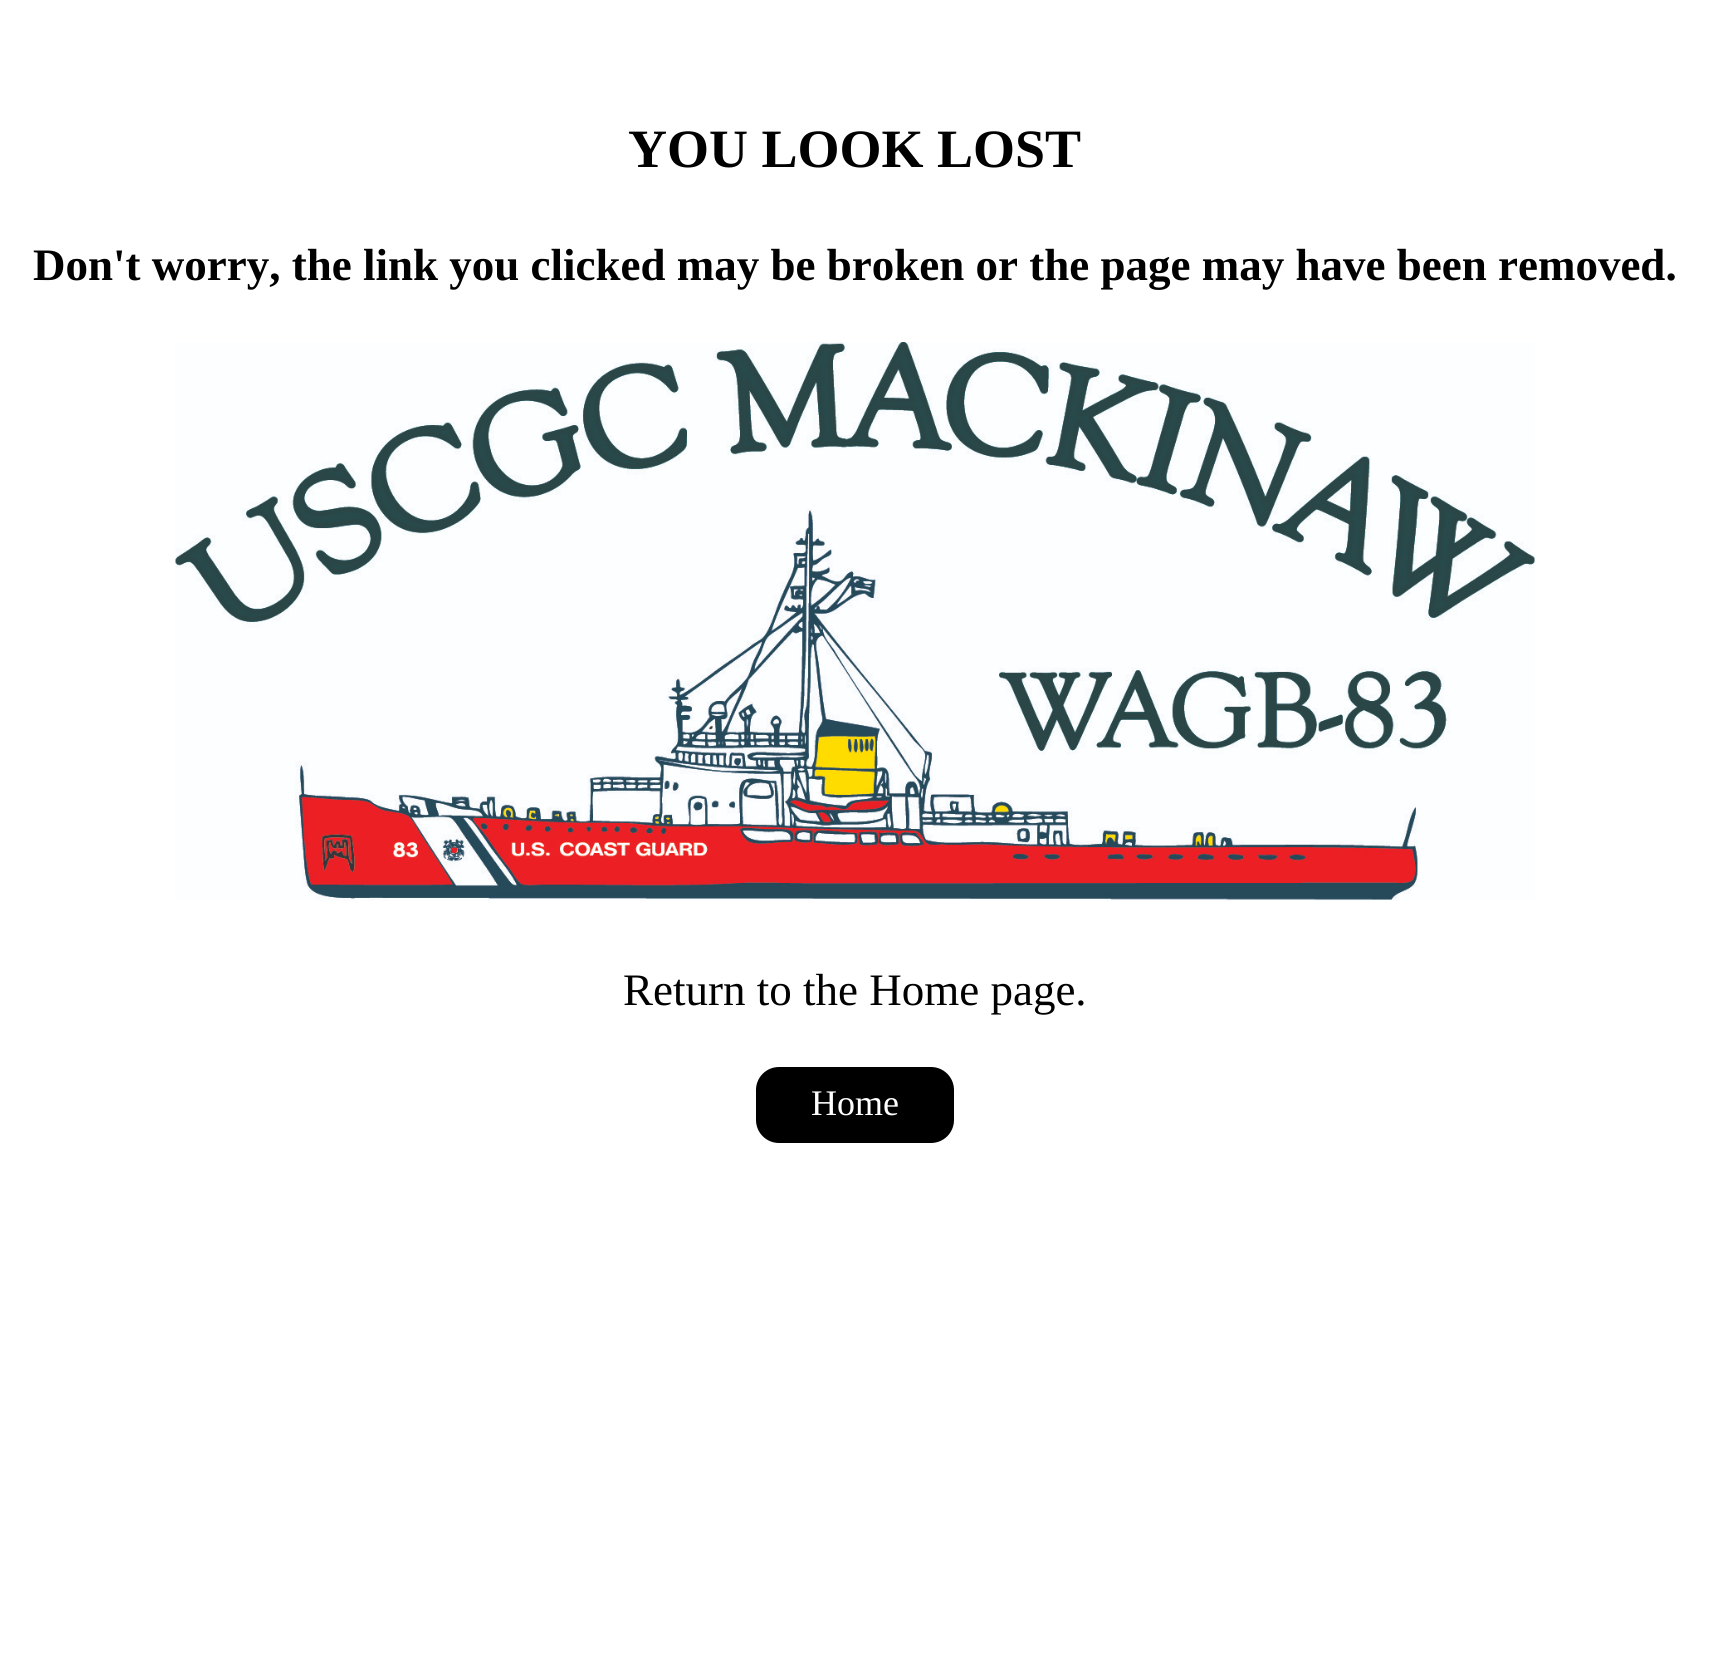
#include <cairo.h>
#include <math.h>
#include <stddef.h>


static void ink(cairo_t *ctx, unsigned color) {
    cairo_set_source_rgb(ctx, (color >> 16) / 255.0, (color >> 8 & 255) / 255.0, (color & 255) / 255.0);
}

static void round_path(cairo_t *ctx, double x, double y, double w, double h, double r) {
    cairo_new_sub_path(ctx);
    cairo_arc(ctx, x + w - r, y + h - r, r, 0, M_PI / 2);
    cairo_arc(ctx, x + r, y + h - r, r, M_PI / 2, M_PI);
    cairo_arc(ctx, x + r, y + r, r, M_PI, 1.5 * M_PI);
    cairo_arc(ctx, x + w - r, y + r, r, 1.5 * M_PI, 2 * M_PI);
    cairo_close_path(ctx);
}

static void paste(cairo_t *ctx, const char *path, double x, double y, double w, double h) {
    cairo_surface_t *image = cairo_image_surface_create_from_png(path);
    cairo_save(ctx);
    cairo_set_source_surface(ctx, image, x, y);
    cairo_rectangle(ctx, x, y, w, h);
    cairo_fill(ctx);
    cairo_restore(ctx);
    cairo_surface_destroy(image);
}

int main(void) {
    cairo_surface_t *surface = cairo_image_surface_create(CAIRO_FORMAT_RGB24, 1710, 1667);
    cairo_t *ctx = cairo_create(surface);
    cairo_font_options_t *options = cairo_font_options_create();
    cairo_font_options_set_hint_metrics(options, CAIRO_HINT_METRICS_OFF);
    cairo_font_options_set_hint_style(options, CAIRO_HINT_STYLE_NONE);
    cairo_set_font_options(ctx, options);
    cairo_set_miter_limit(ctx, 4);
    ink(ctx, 0xFFFFFF);
    cairo_paint(ctx);
    cairo_select_font_face(ctx, "Liberation Serif", CAIRO_FONT_SLANT_NORMAL, CAIRO_FONT_WEIGHT_BOLD);
    cairo_set_font_size(ctx, 54);
    ink(ctx, 0x000000);
    cairo_move_to(ctx, 628, 167);
    cairo_show_text(ctx, "YOU LOOK LOST");
    cairo_set_font_size(ctx, 45);
    cairo_move_to(ctx, 33, 280);
    cairo_show_text(ctx, "Don't worry, the link you clicked may be broken or the page may have been removed.");
    paste(ctx, "media/1.png", 175, 342, 1360, 559);
    cairo_select_font_face(ctx, "Liberation Serif", CAIRO_FONT_SLANT_NORMAL, CAIRO_FONT_WEIGHT_NORMAL);
    cairo_move_to(ctx, 623, 1005);
    cairo_show_text(ctx, "Return to the Home page.");
    round_path(ctx, 757, 1068, 196, 74, 22);
    cairo_fill_preserve(ctx);
    cairo_stroke(ctx);
    cairo_set_font_size(ctx, 36);
    ink(ctx, 0xFFFFFF);
    cairo_move_to(ctx, 811, 1115);
    cairo_show_text(ctx, "Home");
    cairo_surface_write_to_png(surface, "image.png");
    cairo_font_options_destroy(options);
    cairo_destroy(ctx);
    cairo_surface_destroy(surface);
    return 0;
}
